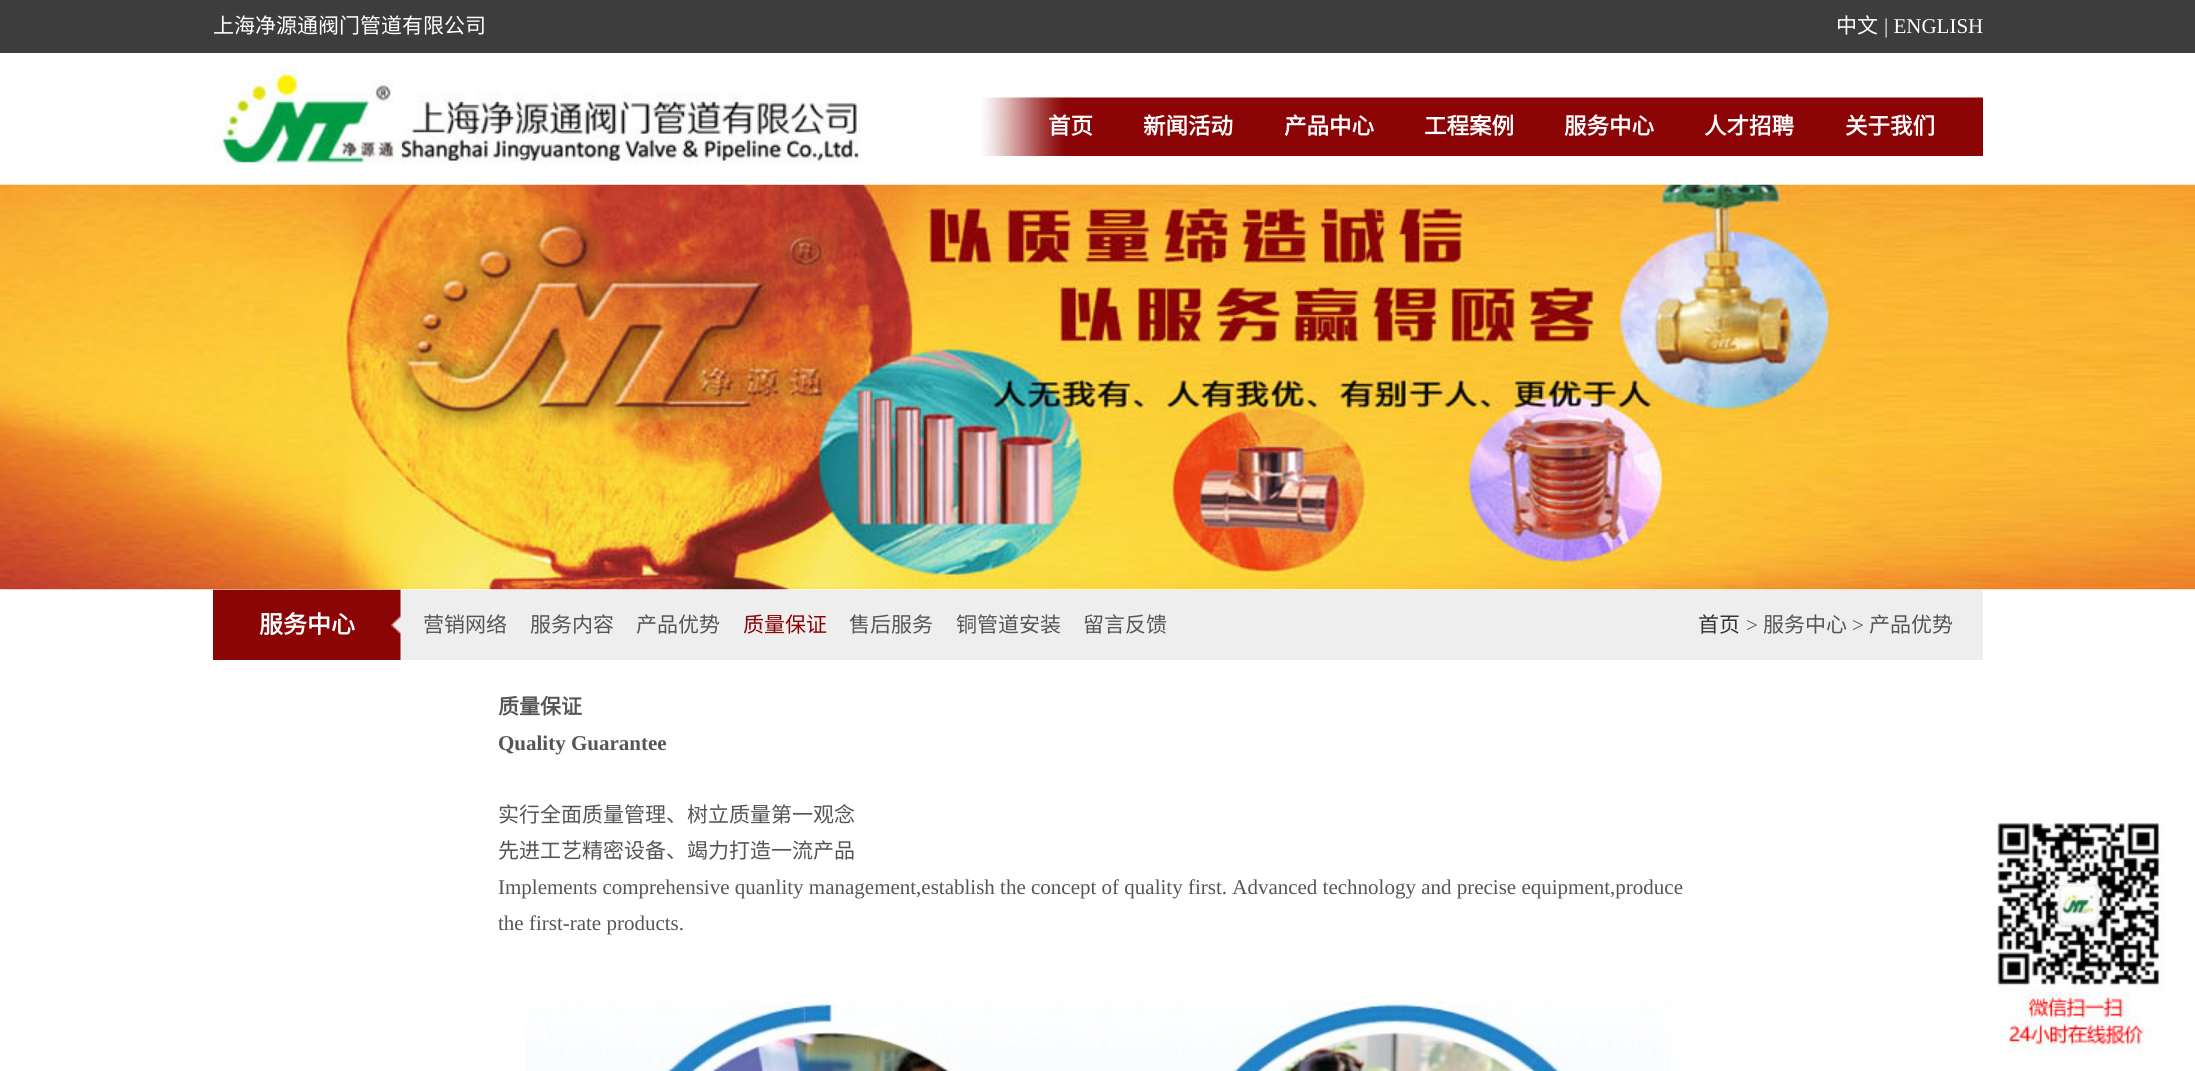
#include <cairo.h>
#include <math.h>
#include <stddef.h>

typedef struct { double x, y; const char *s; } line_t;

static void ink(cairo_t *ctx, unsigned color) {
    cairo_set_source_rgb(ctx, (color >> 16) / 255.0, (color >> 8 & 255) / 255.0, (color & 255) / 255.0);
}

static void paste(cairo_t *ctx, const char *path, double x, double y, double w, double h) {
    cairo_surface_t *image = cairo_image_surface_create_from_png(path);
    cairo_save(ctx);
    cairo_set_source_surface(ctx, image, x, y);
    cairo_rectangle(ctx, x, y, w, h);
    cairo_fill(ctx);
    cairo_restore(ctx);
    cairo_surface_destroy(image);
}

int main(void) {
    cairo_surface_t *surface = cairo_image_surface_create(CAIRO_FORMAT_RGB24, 2195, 1071);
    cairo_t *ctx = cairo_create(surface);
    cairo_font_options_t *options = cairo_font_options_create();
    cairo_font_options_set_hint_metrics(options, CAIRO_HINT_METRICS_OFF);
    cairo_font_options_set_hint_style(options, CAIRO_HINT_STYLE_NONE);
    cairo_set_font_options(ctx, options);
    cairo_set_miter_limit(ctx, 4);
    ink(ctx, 0xFFFFFF);
    cairo_paint(ctx);
    ink(ctx, 0x3D3D3D);
    cairo_rectangle(ctx, 0, 0, 2195, 53);
    cairo_fill(ctx);
    cairo_select_font_face(ctx, "Noto Sans CJK SC", CAIRO_FONT_SLANT_NORMAL, CAIRO_FONT_WEIGHT_NORMAL);
    cairo_set_font_size(ctx, 21);
    ink(ctx, 0xFFFFFF);
    cairo_move_to(ctx, 213, 33);
    cairo_show_text(ctx, "上海净源通阀门管道有限公司");
    cairo_move_to(ctx, 1836, 33);
    cairo_show_text(ctx, "中文");
    cairo_select_font_face(ctx, "Liberation Serif", CAIRO_FONT_SLANT_NORMAL, CAIRO_FONT_WEIGHT_NORMAL);
    cairo_move_to(ctx, 1884, 33);
    cairo_show_text(ctx, "| ENGLISH");
    paste(ctx, "media/1.png", 213, 67, 648, 97);
    paste(ctx, "media/2.png", 982, 97, 1001, 59);
    cairo_select_font_face(ctx, "Noto Sans CJK SC", CAIRO_FONT_SLANT_NORMAL, CAIRO_FONT_WEIGHT_BOLD);
    cairo_set_font_size(ctx, 22.5);
    {
        static const line_t items[] = {
            {1048, 134, "首页"},
            {1143, 134, "新闻活动"},
            {1284, 134, "产品中心"},
            {1424, 134, "工程案例"},
            {1564, 134, "服务中心"},
            {1704, 134, "人才招聘"},
            {1845, 134, "关于我们"},
        };
        for (size_t i = 0; i < sizeof items / sizeof *items; i++) {
            cairo_move_to(ctx, items[i].x, items[i].y);
            cairo_show_text(ctx, items[i].s);
        }
    }
    paste(ctx, "media/3.png", 0, 184, 2195, 406);
    ink(ctx, 0xEEEEEE);
    cairo_rectangle(ctx, 400, 590, 1583, 70);
    cairo_fill(ctx);
    paste(ctx, "media/4.png", 213, 589, 188, 71);
    cairo_set_font_size(ctx, 24);
    ink(ctx, 0xFFFFFF);
    cairo_move_to(ctx, 259, 633);
    cairo_show_text(ctx, "服务中心");
    cairo_select_font_face(ctx, "Noto Sans CJK SC", CAIRO_FONT_SLANT_NORMAL, CAIRO_FONT_WEIGHT_NORMAL);
    cairo_set_font_size(ctx, 21);
    ink(ctx, 0x555555);
    {
        static const line_t items[] = {
            {423, 632, "营销网络"},
            {530, 632, "服务内容"},
            {636, 632, "产品优势"},
        };
        for (size_t i = 0; i < sizeof items / sizeof *items; i++) {
            cairo_move_to(ctx, items[i].x, items[i].y);
            cairo_show_text(ctx, items[i].s);
        }
    }
    ink(ctx, 0x8B0506);
    cairo_move_to(ctx, 743, 632);
    cairo_show_text(ctx, "质量保证");
    ink(ctx, 0x555555);
    {
        static const line_t items[] = {
            {849, 632, "售后服务"},
            {956, 632, "铜管道安装"},
            {1083, 632, "留言反馈"},
        };
        for (size_t i = 0; i < sizeof items / sizeof *items; i++) {
            cairo_move_to(ctx, items[i].x, items[i].y);
            cairo_show_text(ctx, items[i].s);
        }
    }
    ink(ctx, 0x333333);
    cairo_move_to(ctx, 1698, 632);
    cairo_show_text(ctx, "首页");
    cairo_select_font_face(ctx, "Liberation Serif", CAIRO_FONT_SLANT_NORMAL, CAIRO_FONT_WEIGHT_NORMAL);
    ink(ctx, 0x555555);
    cairo_move_to(ctx, 1746, 632);
    cairo_show_text(ctx, ">");
    cairo_select_font_face(ctx, "Noto Sans CJK SC", CAIRO_FONT_SLANT_NORMAL, CAIRO_FONT_WEIGHT_NORMAL);
    cairo_move_to(ctx, 1763, 632);
    cairo_show_text(ctx, "服务中心");
    cairo_select_font_face(ctx, "Liberation Serif", CAIRO_FONT_SLANT_NORMAL, CAIRO_FONT_WEIGHT_NORMAL);
    cairo_move_to(ctx, 1852, 632);
    cairo_show_text(ctx, ">");
    cairo_select_font_face(ctx, "Noto Sans CJK SC", CAIRO_FONT_SLANT_NORMAL, CAIRO_FONT_WEIGHT_NORMAL);
    cairo_move_to(ctx, 1869, 632);
    cairo_show_text(ctx, "产品优势");
    cairo_select_font_face(ctx, "Noto Sans CJK SC", CAIRO_FONT_SLANT_NORMAL, CAIRO_FONT_WEIGHT_BOLD);
    cairo_move_to(ctx, 498, 714);
    cairo_show_text(ctx, "质量保证");
    cairo_select_font_face(ctx, "Liberation Serif", CAIRO_FONT_SLANT_NORMAL, CAIRO_FONT_WEIGHT_BOLD);
    cairo_move_to(ctx, 498, 750);
    cairo_show_text(ctx, "Quality Guarantee");
    cairo_select_font_face(ctx, "Noto Sans CJK SC", CAIRO_FONT_SLANT_NORMAL, CAIRO_FONT_WEIGHT_NORMAL);
    cairo_move_to(ctx, 498, 822);
    cairo_show_text(ctx, "实行全面质量管理、树立质量第一观念");
    cairo_move_to(ctx, 498, 858);
    cairo_show_text(ctx, "先进工艺精密设备、竭力打造一流产品");
    cairo_select_font_face(ctx, "Liberation Serif", CAIRO_FONT_SLANT_NORMAL, CAIRO_FONT_WEIGHT_NORMAL);
    cairo_move_to(ctx, 498, 894);
    cairo_show_text(ctx, "Implements comprehensive quanlity management,establish the concept of quality first. Advanced technology and precise equipment,produce");
    cairo_move_to(ctx, 498, 930);
    cairo_show_text(ctx, "the first-rate products.");
    paste(ctx, "media/5.png", 525, 1001, 1146, 70);
    paste(ctx, "media/6.png", 1997, 823, 169, 229);
    cairo_surface_write_to_png(surface, "image.png");
    cairo_font_options_destroy(options);
    cairo_destroy(ctx);
    cairo_surface_destroy(surface);
    return 0;
}
